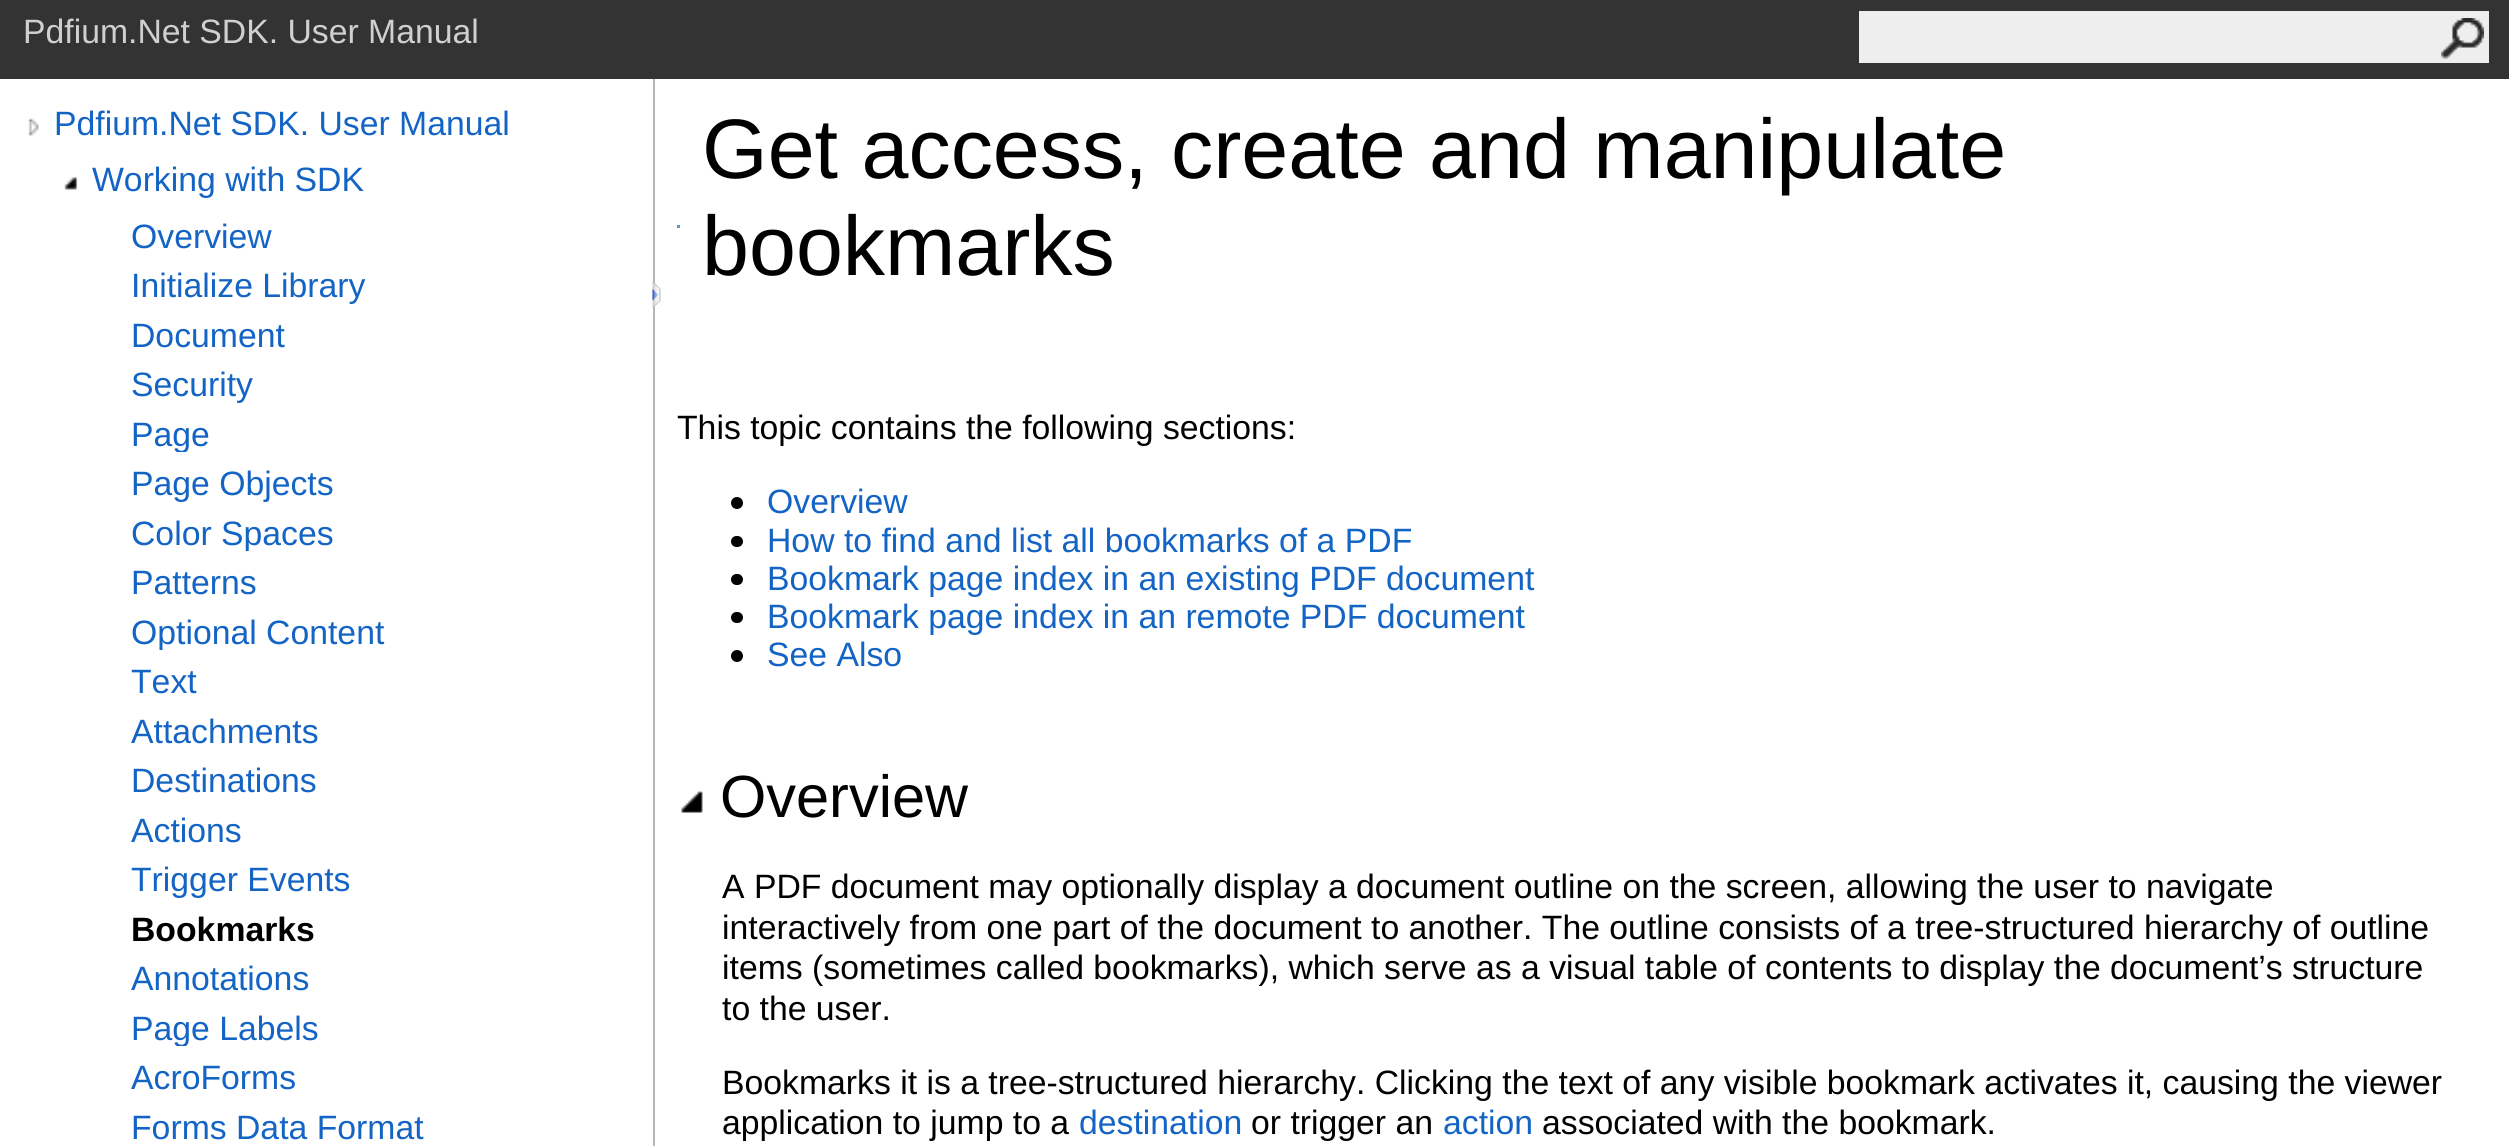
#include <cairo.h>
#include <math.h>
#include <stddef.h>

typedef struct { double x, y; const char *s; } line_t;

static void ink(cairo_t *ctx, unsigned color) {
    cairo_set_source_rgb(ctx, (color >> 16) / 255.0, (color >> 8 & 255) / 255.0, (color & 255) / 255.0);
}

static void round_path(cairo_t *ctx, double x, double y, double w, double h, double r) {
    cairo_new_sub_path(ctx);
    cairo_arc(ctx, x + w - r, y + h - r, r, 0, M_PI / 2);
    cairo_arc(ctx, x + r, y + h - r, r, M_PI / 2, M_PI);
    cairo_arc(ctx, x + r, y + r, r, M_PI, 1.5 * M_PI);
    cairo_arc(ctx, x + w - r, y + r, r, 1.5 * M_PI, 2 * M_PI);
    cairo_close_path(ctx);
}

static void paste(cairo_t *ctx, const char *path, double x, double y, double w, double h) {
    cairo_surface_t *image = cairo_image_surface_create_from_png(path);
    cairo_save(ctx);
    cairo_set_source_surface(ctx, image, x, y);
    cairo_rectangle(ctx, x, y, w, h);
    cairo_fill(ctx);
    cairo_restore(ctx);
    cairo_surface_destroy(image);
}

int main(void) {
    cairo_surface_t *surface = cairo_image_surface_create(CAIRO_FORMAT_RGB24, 2509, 1146);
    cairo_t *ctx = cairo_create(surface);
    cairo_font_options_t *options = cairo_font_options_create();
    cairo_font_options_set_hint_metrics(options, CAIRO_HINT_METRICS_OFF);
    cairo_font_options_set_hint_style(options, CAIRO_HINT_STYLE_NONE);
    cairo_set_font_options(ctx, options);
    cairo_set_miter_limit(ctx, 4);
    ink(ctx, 0xFFFFFF);
    cairo_paint(ctx);
    ink(ctx, 0x333333);
    cairo_rectangle(ctx, 0, 0, 2509, 79);
    cairo_fill(ctx);
    cairo_select_font_face(ctx, "Liberation Sans", CAIRO_FONT_SLANT_NORMAL, CAIRO_FONT_WEIGHT_NORMAL);
    cairo_set_font_size(ctx, 33.75);
    ink(ctx, 0xD0D0D0);
    cairo_move_to(ctx, 23, 43);
    cairo_show_text(ctx, "Pdfium.Net SDK. User Manual");
    ink(ctx, 0xEEEEEE);
    cairo_rectangle(ctx, 1859, 11, 630, 52);
    cairo_fill(ctx);
    paste(ctx, "media/1.png", 2441, 18, 43, 41);
    ink(ctx, 0xB6B6B6);
    cairo_rectangle(ctx, 653, 79, 2, 1067);
    cairo_fill(ctx);
    paste(ctx, "media/2.png", 28, 118, 11, 18);
    ink(ctx, 0x1364C4);
    cairo_move_to(ctx, 54, 135);
    cairo_show_text(ctx, "Pdfium.Net SDK. User Manual");
    paste(ctx, "media/3.png", 64, 177, 14, 13);
    {
        static const line_t items[] = {
            {92, 191, "Working with SDK"},
            {131, 248, "Overview"},
            {131, 297, "Initialize Library"},
            {131, 347, "Document"},
            {131, 396, "Security"},
        };
        for (size_t i = 0; i < sizeof items / sizeof *items; i++) {
            cairo_move_to(ctx, items[i].x, items[i].y);
            cairo_show_text(ctx, items[i].s);
        }
    }
    cairo_save(ctx);
    cairo_rectangle(ctx, 131, 414, 522, 38);
    cairo_clip(ctx);
    cairo_move_to(ctx, 131, 446);
    cairo_show_text(ctx, "Page");
    cairo_restore(ctx);
    cairo_move_to(ctx, 131, 495);
    cairo_show_text(ctx, "Page Objects");
    cairo_save(ctx);
    cairo_rectangle(ctx, 131, 513, 522, 38);
    cairo_clip(ctx);
    cairo_move_to(ctx, 131, 545);
    cairo_show_text(ctx, "Color Spaces");
    cairo_restore(ctx);
    cairo_move_to(ctx, 131, 594);
    cairo_show_text(ctx, "Patterns");
    cairo_save(ctx);
    cairo_rectangle(ctx, 131, 612, 522, 38);
    cairo_clip(ctx);
    cairo_move_to(ctx, 131, 644);
    cairo_show_text(ctx, "Optional Content");
    cairo_restore(ctx);
    {
        static const line_t items[] = {
            {131, 693, "Text"},
            {131, 743, "Attachments"},
            {131, 792, "Destinations"},
            {131, 842, "Actions"},
            {131, 891, "Trigger Events"},
        };
        for (size_t i = 0; i < sizeof items / sizeof *items; i++) {
            cairo_move_to(ctx, items[i].x, items[i].y);
            cairo_show_text(ctx, items[i].s);
        }
    }
    cairo_select_font_face(ctx, "Liberation Sans", CAIRO_FONT_SLANT_NORMAL, CAIRO_FONT_WEIGHT_BOLD);
    ink(ctx, 0x000000);
    cairo_move_to(ctx, 131, 941);
    cairo_show_text(ctx, "Bookmarks");
    cairo_select_font_face(ctx, "Liberation Sans", CAIRO_FONT_SLANT_NORMAL, CAIRO_FONT_WEIGHT_NORMAL);
    ink(ctx, 0x1364C4);
    cairo_move_to(ctx, 131, 990);
    cairo_show_text(ctx, "Annotations");
    cairo_save(ctx);
    cairo_rectangle(ctx, 131, 1008, 522, 38);
    cairo_clip(ctx);
    cairo_move_to(ctx, 131, 1040);
    cairo_show_text(ctx, "Page Labels");
    cairo_restore(ctx);
    cairo_move_to(ctx, 131, 1089);
    cairo_show_text(ctx, "AcroForms");
    cairo_move_to(ctx, 131, 1139);
    cairo_show_text(ctx, "Forms Data Format");
    paste(ctx, "media/4.png", 652, 281, 9, 28);
    ink(ctx, 0x618FE2);
    cairo_rectangle(ctx, 677, 225, 3, 3);
    cairo_fill(ctx);
    cairo_set_font_size(ctx, 84.4);
    ink(ctx, 0x000000);
    cairo_move_to(ctx, 702, 178);
    cairo_show_text(ctx, "Get access, create and manipulate");
    cairo_move_to(ctx, 702, 275);
    cairo_show_text(ctx, "bookmarks");
    cairo_set_font_size(ctx, 33.75);
    cairo_move_to(ctx, 677, 439);
    cairo_show_text(ctx, "This topic contains the following sections:");
    cairo_new_path(ctx);
    cairo_arc(ctx, 737, 503, 6, 0, 2 * M_PI);
    cairo_fill(ctx);
    ink(ctx, 0x1364C4);
    cairo_move_to(ctx, 767, 513);
    cairo_show_text(ctx, "Overview");
    ink(ctx, 0x000000);
    round_path(ctx, 731, 536, 12, 11, 5.5);
    cairo_fill(ctx);
    ink(ctx, 0x1364C4);
    cairo_move_to(ctx, 767, 552);
    cairo_show_text(ctx, "How to find and list all bookmarks of a PDF");
    ink(ctx, 0x000000);
    round_path(ctx, 731, 574, 12, 11, 5.5);
    cairo_fill(ctx);
    ink(ctx, 0x1364C4);
    cairo_move_to(ctx, 767, 590);
    cairo_show_text(ctx, "Bookmark page index in an existing PDF document");
    ink(ctx, 0x000000);
    round_path(ctx, 731, 612, 12, 11, 5.5);
    cairo_fill(ctx);
    ink(ctx, 0x1364C4);
    cairo_move_to(ctx, 767, 628);
    cairo_show_text(ctx, "Bookmark page index in an remote PDF document");
    ink(ctx, 0x000000);
    cairo_new_path(ctx);
    cairo_arc(ctx, 737, 656, 6, 0, 2 * M_PI);
    cairo_fill(ctx);
    ink(ctx, 0x1364C4);
    cairo_move_to(ctx, 767, 666);
    cairo_show_text(ctx, "See Also");
    paste(ctx, "media/5.png", 681, 791, 22, 22);
    cairo_set_font_size(ctx, 59.5);
    ink(ctx, 0x000000);
    cairo_move_to(ctx, 720, 817);
    cairo_show_text(ctx, "Overview");
    cairo_set_font_size(ctx, 33.75);
    {
        static const line_t items[] = {
            {722, 898, "A PDF document may optionally display a document outline on the screen, allowing the user to navigate"},
            {722, 939, "interactively from one part of the document to another. The outline consists of a tree-structured hierarchy of outline"},
            {722, 979, "items (sometimes called bookmarks), which serve as a visual table of contents to display the document’s structure"},
            {722, 1020, "to the user."},
            {722, 1094, "Bookmarks it is a tree-structured hierarchy. Clicking the text of any visible bookmark activates it, causing the viewer"},
            {722, 1134, "application to jump to a"},
        };
        for (size_t i = 0; i < sizeof items / sizeof *items; i++) {
            cairo_move_to(ctx, items[i].x, items[i].y);
            cairo_show_text(ctx, items[i].s);
        }
    }
    ink(ctx, 0x1364C4);
    cairo_move_to(ctx, 1079, 1134);
    cairo_show_text(ctx, "destination");
    ink(ctx, 0x000000);
    cairo_move_to(ctx, 1251, 1134);
    cairo_show_text(ctx, "or trigger an");
    ink(ctx, 0x1364C4);
    cairo_move_to(ctx, 1443, 1134);
    cairo_show_text(ctx, "action");
    ink(ctx, 0x000000);
    cairo_move_to(ctx, 1542, 1134);
    cairo_show_text(ctx, "associated with the bookmark.");
    cairo_surface_write_to_png(surface, "image.png");
    cairo_font_options_destroy(options);
    cairo_destroy(ctx);
    cairo_surface_destroy(surface);
    return 0;
}
